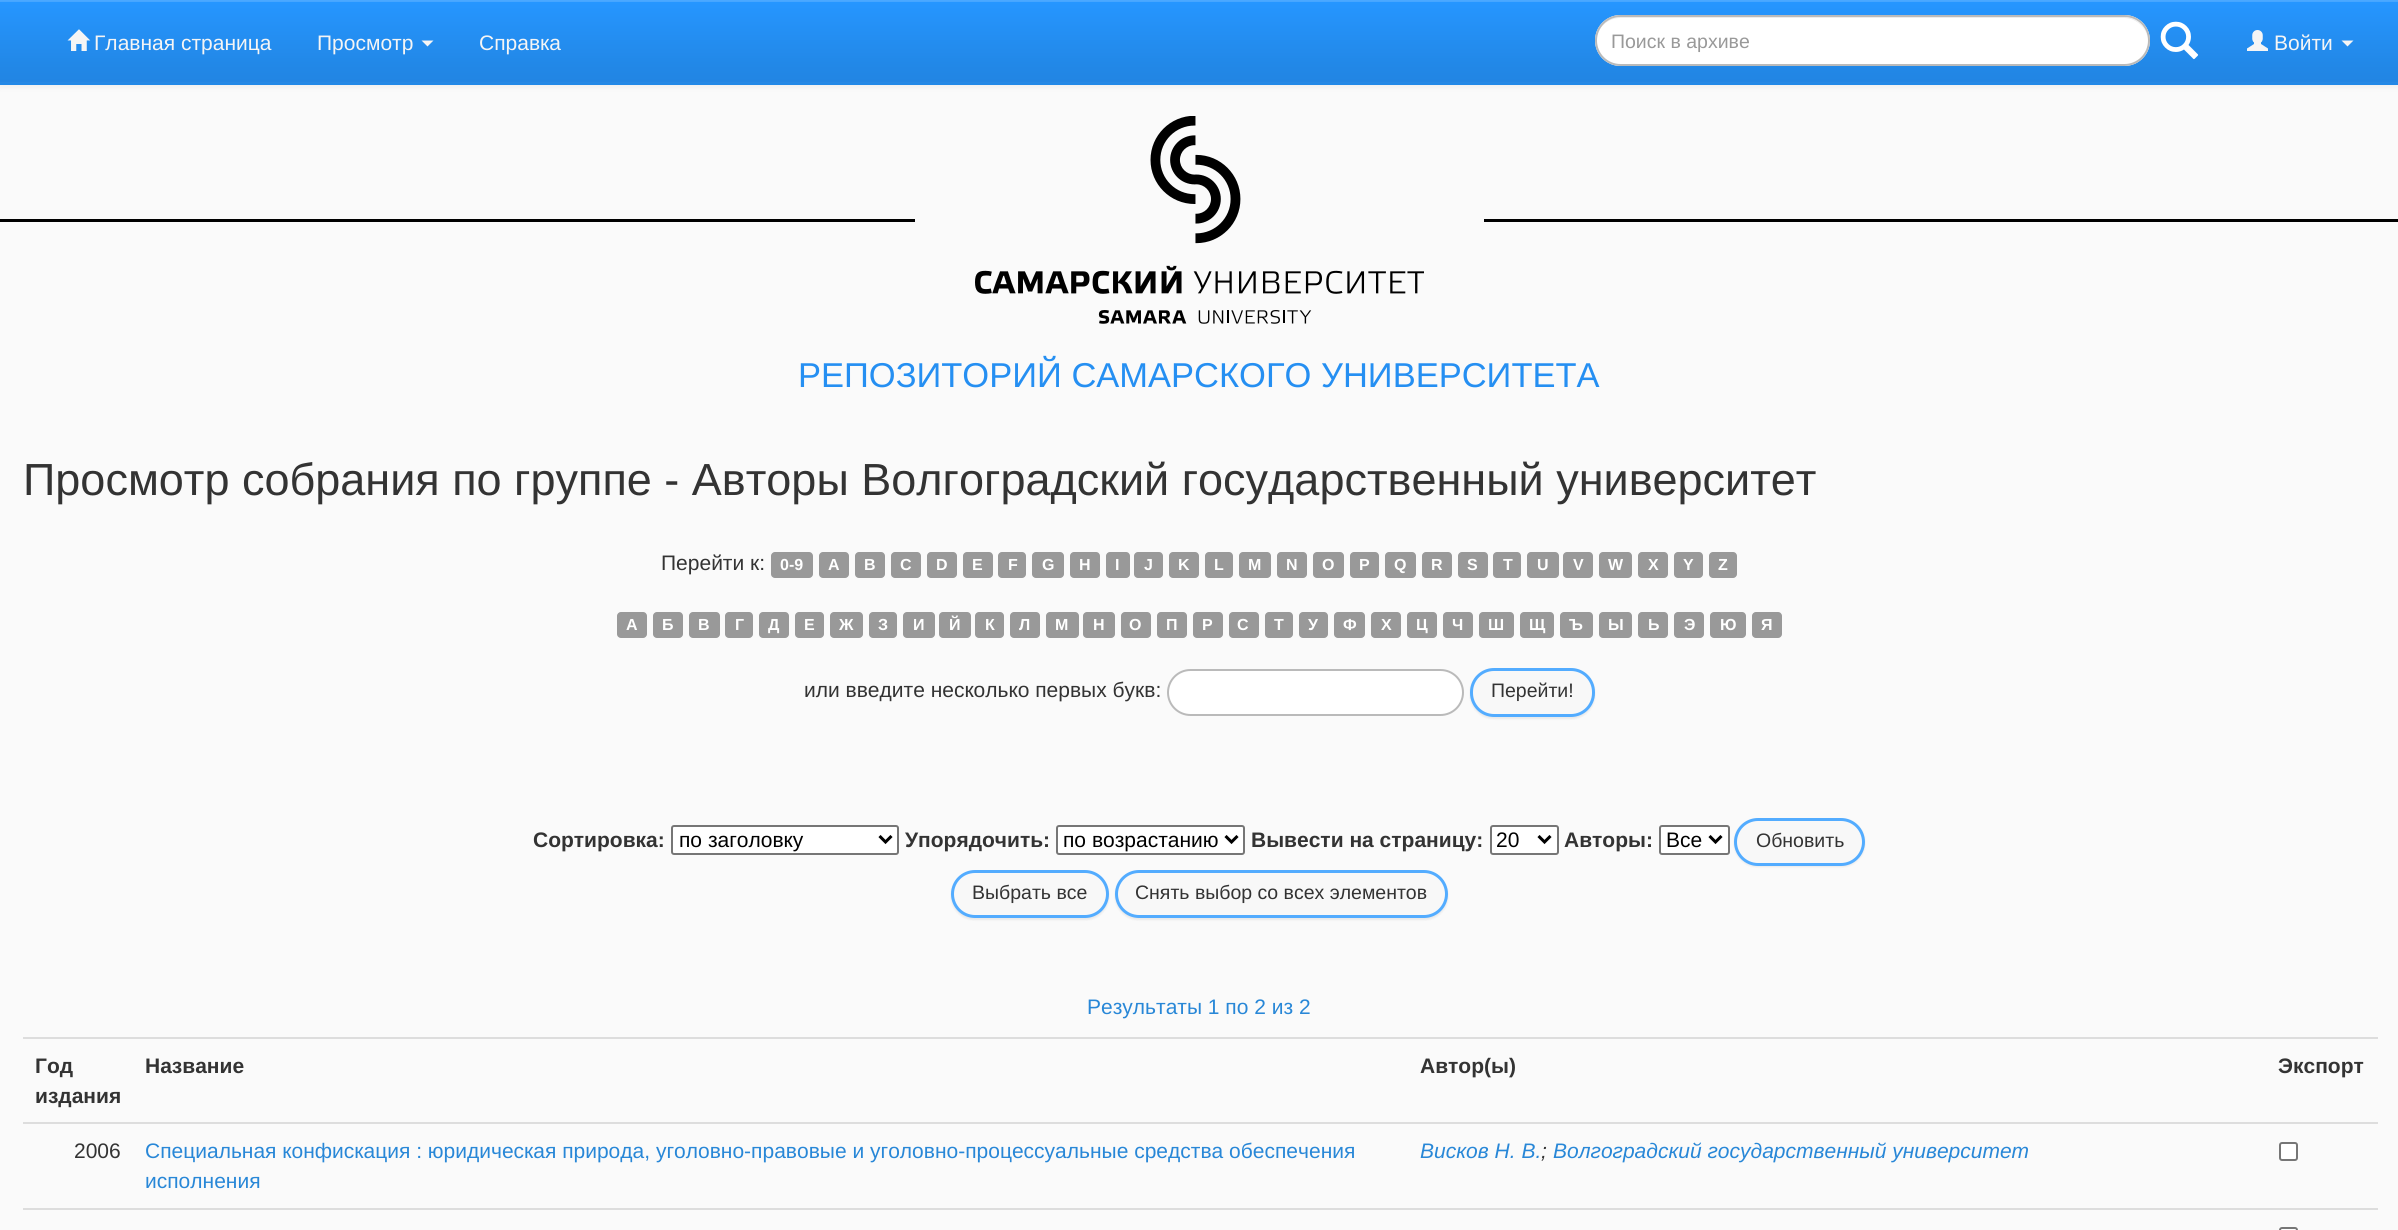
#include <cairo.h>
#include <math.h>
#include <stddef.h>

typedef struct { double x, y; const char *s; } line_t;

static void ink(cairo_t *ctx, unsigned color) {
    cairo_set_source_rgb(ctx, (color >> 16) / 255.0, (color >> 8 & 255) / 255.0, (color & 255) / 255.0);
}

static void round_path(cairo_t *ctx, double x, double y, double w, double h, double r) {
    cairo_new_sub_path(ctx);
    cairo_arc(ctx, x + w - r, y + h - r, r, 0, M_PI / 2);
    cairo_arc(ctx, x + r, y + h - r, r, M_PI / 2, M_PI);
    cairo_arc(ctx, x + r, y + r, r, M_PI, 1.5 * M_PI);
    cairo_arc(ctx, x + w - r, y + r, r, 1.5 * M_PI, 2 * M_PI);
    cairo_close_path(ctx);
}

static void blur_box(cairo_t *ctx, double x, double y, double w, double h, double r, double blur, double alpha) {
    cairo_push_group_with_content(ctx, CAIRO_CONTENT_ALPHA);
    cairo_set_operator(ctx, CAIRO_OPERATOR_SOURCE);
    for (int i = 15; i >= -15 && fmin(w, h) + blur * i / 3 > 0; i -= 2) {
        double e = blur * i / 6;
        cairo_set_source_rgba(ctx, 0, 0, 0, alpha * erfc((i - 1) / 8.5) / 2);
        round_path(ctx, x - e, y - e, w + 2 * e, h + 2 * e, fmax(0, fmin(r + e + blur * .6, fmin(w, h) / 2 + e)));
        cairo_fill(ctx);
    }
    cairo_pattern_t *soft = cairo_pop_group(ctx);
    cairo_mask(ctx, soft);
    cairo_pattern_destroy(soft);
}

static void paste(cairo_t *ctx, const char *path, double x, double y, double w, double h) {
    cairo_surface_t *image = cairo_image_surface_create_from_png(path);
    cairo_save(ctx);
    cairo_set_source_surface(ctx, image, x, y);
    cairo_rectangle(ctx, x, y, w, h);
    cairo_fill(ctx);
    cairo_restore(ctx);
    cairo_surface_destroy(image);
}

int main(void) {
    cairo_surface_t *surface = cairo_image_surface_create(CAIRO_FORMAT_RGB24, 2398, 1230);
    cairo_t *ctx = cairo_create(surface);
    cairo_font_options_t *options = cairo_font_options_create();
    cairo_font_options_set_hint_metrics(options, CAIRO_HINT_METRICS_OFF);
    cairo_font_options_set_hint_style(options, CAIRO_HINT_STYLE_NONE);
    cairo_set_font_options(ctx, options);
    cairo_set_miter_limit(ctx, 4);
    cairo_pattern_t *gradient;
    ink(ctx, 0xFAFAFA);
    cairo_paint(ctx);
    ink(ctx, 0x000000);
    blur_box(ctx, 0, 2, 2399, 84, 0, 4, 0.07);
    gradient = cairo_pattern_create_linear(1199, 0, 1199, 83);
    cairo_pattern_add_color_stop_rgba(gradient, 0, 0.176, 0.604, 1, 1);
    cairo_pattern_add_color_stop_rgba(gradient, 0.02, 0.149, 0.588, 1, 1);
    cairo_pattern_add_color_stop_rgba(gradient, 0.78, 0.133, 0.533, 0.906, 1);
    cairo_pattern_add_color_stop_rgba(gradient, 0.98, 0.133, 0.522, 0.89, 1);
    cairo_pattern_add_color_stop_rgba(gradient, 1, 0.165, 0.537, 0.89, 1);
    cairo_set_source(ctx, gradient);
    cairo_pattern_destroy(gradient);
    cairo_rectangle(ctx, 0, 2, 2398, 81);
    cairo_fill(ctx);
    gradient = cairo_pattern_create_linear(1199, 0, 1199, 83);
    cairo_pattern_add_color_stop_rgba(gradient, 0, 0.302, 0.663, 1, 1);
    cairo_pattern_add_color_stop_rgba(gradient, 0.02, 0.278, 0.651, 1, 1);
    cairo_pattern_add_color_stop_rgba(gradient, 0.78, 0.263, 0.604, 0.922, 1);
    cairo_pattern_add_color_stop_rgba(gradient, 0.98, 0.263, 0.592, 0.906, 1);
    cairo_pattern_add_color_stop_rgba(gradient, 1, 0.29, 0.608, 0.906, 1);
    cairo_set_source(ctx, gradient);
    cairo_pattern_destroy(gradient);
    cairo_rectangle(ctx, 0, 0, 2398, 2);
    cairo_fill(ctx);
    ink(ctx, 0x2288E7);
    cairo_rectangle(ctx, 0, 83, 2398, 2);
    cairo_fill(ctx);
    paste(ctx, "media/1.png", 67, 29, 24, 22);
    cairo_select_font_face(ctx, "Liberation Sans", CAIRO_FONT_SLANT_NORMAL, CAIRO_FONT_WEIGHT_NORMAL);
    cairo_set_font_size(ctx, 21);
    ink(ctx, 0xF5F5F5);
    cairo_move_to(ctx, 94, 50);
    cairo_show_text(ctx, "Главная страница");
    cairo_move_to(ctx, 317, 50);
    cairo_show_text(ctx, "Просмотр");
    cairo_new_path(ctx);
    cairo_move_to(ctx, 421.5, 40.5);
    cairo_line_to(ctx, 433.5, 40.5);
    cairo_line_to(ctx, 427.5, 46.5);
    cairo_close_path(ctx);
    cairo_fill(ctx);
    cairo_move_to(ctx, 479, 50);
    cairo_show_text(ctx, "Справка");
    ink(ctx, 0xFFFFFF);
    round_path(ctx, 1595, 15, 555, 51, 25.5);
    cairo_fill(ctx);
    ink(ctx, 0xECECEC);
    cairo_new_path(ctx);
    cairo_move_to(ctx, 1620, 18);
    cairo_line_to(ctx, 2124, 18);
    cairo_curve_to(ctx, 2137, 18, 2148, 29, 2148, 42);
    cairo_curve_to(ctx, 2148, 28, 2137, 17, 2124, 17);
    cairo_line_to(ctx, 1620, 17);
    cairo_curve_to(ctx, 1607, 17, 1596, 28, 1596, 42);
    cairo_curve_to(ctx, 1596, 29, 1607, 18, 1620, 18);
    cairo_close_path(ctx);
    cairo_fill(ctx);
    round_path(ctx, 1596, 16, 553, 49, 24.5);
    ink(ctx, 0xBABABA);
    cairo_stroke(ctx);
    cairo_set_font_size(ctx, 19.5);
    ink(ctx, 0x999999);
    cairo_move_to(ctx, 1611, 48);
    cairo_show_text(ctx, "Поиск в архиве");
    paste(ctx, "media/2.png", 2160, 21, 39, 39);
    paste(ctx, "media/3.png", 2247, 30, 21, 21);
    cairo_set_font_size(ctx, 21);
    ink(ctx, 0xF5F5F5);
    cairo_move_to(ctx, 2274, 50);
    cairo_show_text(ctx, "Войти");
    cairo_new_path(ctx);
    cairo_move_to(ctx, 2341.5, 40.5);
    cairo_line_to(ctx, 2353.5, 40.5);
    cairo_line_to(ctx, 2347.5, 46.5);
    cairo_close_path(ctx);
    cairo_fill(ctx);
    ink(ctx, 0x000000);
    cairo_rectangle(ctx, 0, 219, 2398, 3);
    cairo_fill(ctx);
    ink(ctx, 0xFAFAFA);
    cairo_rectangle(ctx, 915, 219, 569, 3);
    cairo_fill(ctx);
    paste(ctx, "media/4.png", 975, 116, 449, 208);
    cairo_set_font_size(ctx, 34.5);
    ink(ctx, 0x258FF2);
    cairo_move_to(ctx, 798, 387);
    cairo_show_text(ctx, "РЕПОЗИТОРИЙ САМАРСКОГО УНИВЕРСИТЕТА");
    cairo_set_font_size(ctx, 45);
    ink(ctx, 0x333333);
    cairo_move_to(ctx, 23, 495);
    cairo_show_text(ctx, "Просмотр собрания по группе - Авторы Волгоградский государственный университет");
    cairo_set_font_size(ctx, 21);
    cairo_move_to(ctx, 661, 570);
    cairo_show_text(ctx, "Перейти к:");
    ink(ctx, 0x999999);
    round_path(ctx, 771, 552, 42, 26, 4);
    cairo_fill(ctx);
    cairo_select_font_face(ctx, "Liberation Sans", CAIRO_FONT_SLANT_NORMAL, CAIRO_FONT_WEIGHT_BOLD);
    cairo_set_font_size(ctx, 16);
    ink(ctx, 0xFFFFFF);
    cairo_move_to(ctx, 780, 570);
    cairo_show_text(ctx, "0-9");
    ink(ctx, 0x999999);
    round_path(ctx, 819, 552, 30, 26, 4);
    cairo_fill(ctx);
    ink(ctx, 0xFFFFFF);
    cairo_move_to(ctx, 828, 570);
    cairo_show_text(ctx, "A");
    ink(ctx, 0x999999);
    round_path(ctx, 855, 552, 30, 26, 4);
    cairo_fill(ctx);
    ink(ctx, 0xFFFFFF);
    cairo_move_to(ctx, 864, 570);
    cairo_show_text(ctx, "B");
    ink(ctx, 0x999999);
    round_path(ctx, 891, 552, 30, 26, 4);
    cairo_fill(ctx);
    ink(ctx, 0xFFFFFF);
    cairo_move_to(ctx, 900, 570);
    cairo_show_text(ctx, "C");
    ink(ctx, 0x999999);
    round_path(ctx, 927, 552, 30, 26, 4);
    cairo_fill(ctx);
    ink(ctx, 0xFFFFFF);
    cairo_move_to(ctx, 936, 570);
    cairo_show_text(ctx, "D");
    ink(ctx, 0x999999);
    round_path(ctx, 963, 552, 30, 26, 4);
    cairo_fill(ctx);
    ink(ctx, 0xFFFFFF);
    cairo_move_to(ctx, 972, 570);
    cairo_show_text(ctx, "E");
    ink(ctx, 0x999999);
    round_path(ctx, 998, 552, 28, 26, 4);
    cairo_fill(ctx);
    ink(ctx, 0xFFFFFF);
    cairo_move_to(ctx, 1008, 570);
    cairo_show_text(ctx, "F");
    ink(ctx, 0x999999);
    round_path(ctx, 1032, 552, 32, 26, 4);
    cairo_fill(ctx);
    ink(ctx, 0xFFFFFF);
    cairo_move_to(ctx, 1042, 570);
    cairo_show_text(ctx, "G");
    ink(ctx, 0x999999);
    round_path(ctx, 1070, 552, 30, 26, 4);
    cairo_fill(ctx);
    ink(ctx, 0xFFFFFF);
    cairo_move_to(ctx, 1079, 570);
    cairo_show_text(ctx, "H");
    ink(ctx, 0x999999);
    round_path(ctx, 1106, 552, 24, 26, 4);
    cairo_fill(ctx);
    ink(ctx, 0xFFFFFF);
    cairo_move_to(ctx, 1115, 570);
    cairo_show_text(ctx, "I");
    ink(ctx, 0x999999);
    round_path(ctx, 1134, 552, 29, 26, 4);
    cairo_fill(ctx);
    ink(ctx, 0xFFFFFF);
    cairo_move_to(ctx, 1144, 570);
    cairo_show_text(ctx, "J");
    ink(ctx, 0x999999);
    round_path(ctx, 1169, 552, 30, 26, 4);
    cairo_fill(ctx);
    ink(ctx, 0xFFFFFF);
    cairo_move_to(ctx, 1178, 570);
    cairo_show_text(ctx, "K");
    ink(ctx, 0x999999);
    round_path(ctx, 1205, 552, 28, 26, 4);
    cairo_fill(ctx);
    ink(ctx, 0xFFFFFF);
    cairo_move_to(ctx, 1214, 570);
    cairo_show_text(ctx, "L");
    ink(ctx, 0x999999);
    round_path(ctx, 1239, 552, 32, 26, 4);
    cairo_fill(ctx);
    ink(ctx, 0xFFFFFF);
    cairo_move_to(ctx, 1248, 570);
    cairo_show_text(ctx, "M");
    ink(ctx, 0x999999);
    round_path(ctx, 1277, 552, 30, 26, 4);
    cairo_fill(ctx);
    ink(ctx, 0xFFFFFF);
    cairo_move_to(ctx, 1286, 570);
    cairo_show_text(ctx, "N");
    ink(ctx, 0x999999);
    round_path(ctx, 1313, 552, 31, 26, 4);
    cairo_fill(ctx);
    ink(ctx, 0xFFFFFF);
    cairo_move_to(ctx, 1322, 570);
    cairo_show_text(ctx, "O");
    ink(ctx, 0x999999);
    round_path(ctx, 1350, 552, 29, 26, 4);
    cairo_fill(ctx);
    ink(ctx, 0xFFFFFF);
    cairo_move_to(ctx, 1359, 570);
    cairo_show_text(ctx, "P");
    ink(ctx, 0x999999);
    round_path(ctx, 1385, 552, 31, 26, 4);
    cairo_fill(ctx);
    ink(ctx, 0xFFFFFF);
    cairo_move_to(ctx, 1394, 570);
    cairo_show_text(ctx, "Q");
    ink(ctx, 0x999999);
    round_path(ctx, 1422, 552, 30, 26, 4);
    cairo_fill(ctx);
    ink(ctx, 0xFFFFFF);
    cairo_move_to(ctx, 1431, 570);
    cairo_show_text(ctx, "R");
    ink(ctx, 0x999999);
    round_path(ctx, 1458, 552, 30, 26, 4);
    cairo_fill(ctx);
    ink(ctx, 0xFFFFFF);
    cairo_move_to(ctx, 1467, 570);
    cairo_show_text(ctx, "S");
    ink(ctx, 0x999999);
    round_path(ctx, 1493, 552, 28, 26, 4);
    cairo_fill(ctx);
    ink(ctx, 0xFFFFFF);
    cairo_move_to(ctx, 1503, 570);
    cairo_show_text(ctx, "T");
    ink(ctx, 0x999999);
    round_path(ctx, 1527, 552, 32, 26, 4);
    cairo_fill(ctx);
    ink(ctx, 0xFFFFFF);
    cairo_move_to(ctx, 1537, 570);
    cairo_show_text(ctx, "U");
    ink(ctx, 0x999999);
    round_path(ctx, 1563, 552, 30, 26, 4);
    cairo_fill(ctx);
    ink(ctx, 0xFFFFFF);
    cairo_move_to(ctx, 1573, 570);
    cairo_show_text(ctx, "V");
    ink(ctx, 0x999999);
    round_path(ctx, 1599, 552, 33, 26, 4);
    cairo_fill(ctx);
    ink(ctx, 0xFFFFFF);
    cairo_move_to(ctx, 1608, 570);
    cairo_show_text(ctx, "W");
    ink(ctx, 0x999999);
    round_path(ctx, 1638, 552, 30, 26, 4);
    cairo_fill(ctx);
    ink(ctx, 0xFFFFFF);
    cairo_move_to(ctx, 1648, 570);
    cairo_show_text(ctx, "X");
    ink(ctx, 0x999999);
    round_path(ctx, 1674, 552, 29, 26, 4);
    cairo_fill(ctx);
    ink(ctx, 0xFFFFFF);
    cairo_move_to(ctx, 1683, 570);
    cairo_show_text(ctx, "Y");
    ink(ctx, 0x999999);
    round_path(ctx, 1709, 552, 28, 26, 4);
    cairo_fill(ctx);
    ink(ctx, 0xFFFFFF);
    cairo_move_to(ctx, 1718, 570);
    cairo_show_text(ctx, "Z");
    ink(ctx, 0x999999);
    round_path(ctx, 617, 612, 30, 26, 4);
    cairo_fill(ctx);
    ink(ctx, 0xFFFFFF);
    cairo_move_to(ctx, 626, 630);
    cairo_show_text(ctx, "А");
    ink(ctx, 0x999999);
    round_path(ctx, 653, 612, 30, 26, 4);
    cairo_fill(ctx);
    ink(ctx, 0xFFFFFF);
    cairo_move_to(ctx, 662, 630);
    cairo_show_text(ctx, "Б");
    ink(ctx, 0x999999);
    round_path(ctx, 689, 612, 31, 26, 4);
    cairo_fill(ctx);
    ink(ctx, 0xFFFFFF);
    cairo_move_to(ctx, 698, 630);
    cairo_show_text(ctx, "В");
    ink(ctx, 0x999999);
    round_path(ctx, 725, 612, 28, 26, 4);
    cairo_fill(ctx);
    ink(ctx, 0xFFFFFF);
    cairo_move_to(ctx, 735, 630);
    cairo_show_text(ctx, "Г");
    ink(ctx, 0x999999);
    round_path(ctx, 759, 612, 30, 26, 4);
    cairo_fill(ctx);
    ink(ctx, 0xFFFFFF);
    cairo_move_to(ctx, 768, 630);
    cairo_show_text(ctx, "Д");
    ink(ctx, 0x999999);
    round_path(ctx, 795, 612, 29, 26, 4);
    cairo_fill(ctx);
    ink(ctx, 0xFFFFFF);
    cairo_move_to(ctx, 804, 630);
    cairo_show_text(ctx, "Е");
    ink(ctx, 0x999999);
    round_path(ctx, 830, 612, 33, 26, 4);
    cairo_fill(ctx);
    ink(ctx, 0xFFFFFF);
    cairo_move_to(ctx, 839, 630);
    cairo_show_text(ctx, "Ж");
    ink(ctx, 0x999999);
    round_path(ctx, 869, 612, 28, 26, 4);
    cairo_fill(ctx);
    ink(ctx, 0xFFFFFF);
    cairo_move_to(ctx, 878, 630);
    cairo_show_text(ctx, "З");
    ink(ctx, 0x999999);
    round_path(ctx, 903, 612, 32, 26, 4);
    cairo_fill(ctx);
    ink(ctx, 0xFFFFFF);
    cairo_move_to(ctx, 913, 630);
    cairo_show_text(ctx, "И");
    ink(ctx, 0x999999);
    round_path(ctx, 939, 612, 32, 26, 4);
    cairo_fill(ctx);
    ink(ctx, 0xFFFFFF);
    cairo_move_to(ctx, 949, 630);
    cairo_show_text(ctx, "Й");
    ink(ctx, 0x999999);
    round_path(ctx, 975, 612, 29, 26, 4);
    cairo_fill(ctx);
    ink(ctx, 0xFFFFFF);
    cairo_move_to(ctx, 985, 630);
    cairo_show_text(ctx, "К");
    ink(ctx, 0x999999);
    round_path(ctx, 1010, 612, 30, 26, 4);
    cairo_fill(ctx);
    ink(ctx, 0xFFFFFF);
    cairo_move_to(ctx, 1019, 630);
    cairo_show_text(ctx, "Л");
    ink(ctx, 0x999999);
    round_path(ctx, 1046, 612, 33, 26, 4);
    cairo_fill(ctx);
    ink(ctx, 0xFFFFFF);
    cairo_move_to(ctx, 1055, 630);
    cairo_show_text(ctx, "М");
    ink(ctx, 0x999999);
    round_path(ctx, 1083, 612, 32, 26, 4);
    cairo_fill(ctx);
    ink(ctx, 0xFFFFFF);
    cairo_move_to(ctx, 1093, 630);
    cairo_show_text(ctx, "Н");
    ink(ctx, 0x999999);
    round_path(ctx, 1121, 612, 30, 26, 4);
    cairo_fill(ctx);
    ink(ctx, 0xFFFFFF);
    cairo_move_to(ctx, 1129, 630);
    cairo_show_text(ctx, "О");
    ink(ctx, 0x999999);
    round_path(ctx, 1157, 612, 30, 26, 4);
    cairo_fill(ctx);
    ink(ctx, 0xFFFFFF);
    cairo_move_to(ctx, 1166, 630);
    cairo_show_text(ctx, "П");
    ink(ctx, 0x999999);
    round_path(ctx, 1193, 612, 30, 26, 4);
    cairo_fill(ctx);
    ink(ctx, 0xFFFFFF);
    cairo_move_to(ctx, 1202, 630);
    cairo_show_text(ctx, "Р");
    ink(ctx, 0x999999);
    round_path(ctx, 1229, 612, 30, 26, 4);
    cairo_fill(ctx);
    ink(ctx, 0xFFFFFF);
    cairo_move_to(ctx, 1237, 630);
    cairo_show_text(ctx, "С");
    ink(ctx, 0x999999);
    round_path(ctx, 1265, 612, 28, 26, 4);
    cairo_fill(ctx);
    ink(ctx, 0xFFFFFF);
    cairo_move_to(ctx, 1274, 630);
    cairo_show_text(ctx, "Т");
    ink(ctx, 0x999999);
    round_path(ctx, 1299, 612, 29, 26, 4);
    cairo_fill(ctx);
    ink(ctx, 0xFFFFFF);
    cairo_move_to(ctx, 1308, 630);
    cairo_show_text(ctx, "У");
    ink(ctx, 0x999999);
    round_path(ctx, 1334, 612, 31, 26, 4);
    cairo_fill(ctx);
    ink(ctx, 0xFFFFFF);
    cairo_move_to(ctx, 1343, 630);
    cairo_show_text(ctx, "Ф");
    ink(ctx, 0x999999);
    round_path(ctx, 1371, 612, 30, 26, 4);
    cairo_fill(ctx);
    ink(ctx, 0xFFFFFF);
    cairo_move_to(ctx, 1381, 630);
    cairo_show_text(ctx, "Х");
    ink(ctx, 0x999999);
    round_path(ctx, 1407, 612, 30, 26, 4);
    cairo_fill(ctx);
    ink(ctx, 0xFFFFFF);
    cairo_move_to(ctx, 1416, 630);
    cairo_show_text(ctx, "Ц");
    ink(ctx, 0x999999);
    round_path(ctx, 1443, 612, 30, 26, 4);
    cairo_fill(ctx);
    ink(ctx, 0xFFFFFF);
    cairo_move_to(ctx, 1452, 630);
    cairo_show_text(ctx, "Ч");
    ink(ctx, 0x999999);
    round_path(ctx, 1479, 612, 35, 26, 4);
    cairo_fill(ctx);
    ink(ctx, 0xFFFFFF);
    cairo_move_to(ctx, 1488, 630);
    cairo_show_text(ctx, "Ш");
    ink(ctx, 0x999999);
    round_path(ctx, 1520, 612, 34, 26, 4);
    cairo_fill(ctx);
    ink(ctx, 0xFFFFFF);
    cairo_move_to(ctx, 1529, 630);
    cairo_show_text(ctx, "Щ");
    ink(ctx, 0x999999);
    round_path(ctx, 1560, 612, 33, 26, 4);
    cairo_fill(ctx);
    ink(ctx, 0xFFFFFF);
    cairo_move_to(ctx, 1569, 630);
    cairo_show_text(ctx, "Ъ");
    ink(ctx, 0x999999);
    round_path(ctx, 1599, 612, 33, 26, 4);
    cairo_fill(ctx);
    ink(ctx, 0xFFFFFF);
    cairo_move_to(ctx, 1608, 630);
    cairo_show_text(ctx, "Ы");
    ink(ctx, 0x999999);
    round_path(ctx, 1638, 612, 30, 26, 4);
    cairo_fill(ctx);
    ink(ctx, 0xFFFFFF);
    cairo_move_to(ctx, 1648, 630);
    cairo_show_text(ctx, "Ь");
    ink(ctx, 0x999999);
    round_path(ctx, 1674, 612, 30, 26, 4);
    cairo_fill(ctx);
    ink(ctx, 0xFFFFFF);
    cairo_move_to(ctx, 1684, 630);
    cairo_show_text(ctx, "Э");
    ink(ctx, 0x999999);
    round_path(ctx, 1710, 612, 36, 26, 4);
    cairo_fill(ctx);
    ink(ctx, 0xFFFFFF);
    cairo_move_to(ctx, 1720, 630);
    cairo_show_text(ctx, "Ю");
    ink(ctx, 0x999999);
    round_path(ctx, 1752, 612, 30, 26, 4);
    cairo_fill(ctx);
    ink(ctx, 0xFFFFFF);
    cairo_move_to(ctx, 1761, 630);
    cairo_show_text(ctx, "Я");
    cairo_select_font_face(ctx, "Liberation Sans", CAIRO_FONT_SLANT_NORMAL, CAIRO_FONT_WEIGHT_NORMAL);
    cairo_set_font_size(ctx, 21);
    ink(ctx, 0x333333);
    cairo_move_to(ctx, 804, 697);
    cairo_show_text(ctx, "или введите несколько первых букв:");
    ink(ctx, 0xFFFFFF);
    round_path(ctx, 1168, 670, 295, 45, 22.5);
    cairo_fill_preserve(ctx);
    ink(ctx, 0xBABABA);
    cairo_stroke(ctx);
    ink(ctx, 0x000000);
    blur_box(ctx, 1470, 669, 125, 50, 24, 1, 0.07);
    ink(ctx, 0xF8F8F8);
    round_path(ctx, 1471.5, 669.5, 122, 46, 22.5);
    cairo_fill_preserve(ctx);
    ink(ctx, 0x53ACFF);
    cairo_set_line_width(ctx, 3);
    cairo_stroke(ctx);
    cairo_set_font_size(ctx, 19.5);
    ink(ctx, 0x333333);
    cairo_move_to(ctx, 1491, 697);
    cairo_show_text(ctx, "Перейти!");
    cairo_select_font_face(ctx, "Liberation Sans", CAIRO_FONT_SLANT_NORMAL, CAIRO_FONT_WEIGHT_BOLD);
    cairo_set_font_size(ctx, 21);
    cairo_move_to(ctx, 533, 847);
    cairo_show_text(ctx, "Сортировка:");
    ink(ctx, 0xFFFFFF);
    round_path(ctx, 672, 826, 226, 28, 2);
    cairo_fill_preserve(ctx);
    ink(ctx, 0x767676);
    cairo_set_line_width(ctx, 2);
    cairo_stroke(ctx);
    cairo_new_path(ctx);
    cairo_move_to(ctx, 879.5, 836);
    cairo_line_to(ctx, 885.5, 842);
    cairo_line_to(ctx, 891.5, 836);
    ink(ctx, 0x000000);
    cairo_set_line_width(ctx, 3);
    cairo_stroke(ctx);
    cairo_select_font_face(ctx, "Liberation Sans", CAIRO_FONT_SLANT_NORMAL, CAIRO_FONT_WEIGHT_NORMAL);
    cairo_move_to(ctx, 679, 847);
    cairo_show_text(ctx, "по заголовку");
    cairo_select_font_face(ctx, "Liberation Sans", CAIRO_FONT_SLANT_NORMAL, CAIRO_FONT_WEIGHT_BOLD);
    ink(ctx, 0x333333);
    cairo_move_to(ctx, 905, 847);
    cairo_show_text(ctx, "Упорядочить:");
    ink(ctx, 0xFFFFFF);
    round_path(ctx, 1057, 826, 187, 28, 2);
    cairo_fill_preserve(ctx);
    ink(ctx, 0x767676);
    cairo_set_line_width(ctx, 2);
    cairo_stroke(ctx);
    cairo_new_path(ctx);
    cairo_move_to(ctx, 1225.5, 836);
    cairo_line_to(ctx, 1231.5, 842);
    cairo_line_to(ctx, 1237.5, 836);
    ink(ctx, 0x000000);
    cairo_set_line_width(ctx, 3);
    cairo_stroke(ctx);
    cairo_select_font_face(ctx, "Liberation Sans", CAIRO_FONT_SLANT_NORMAL, CAIRO_FONT_WEIGHT_NORMAL);
    cairo_move_to(ctx, 1063, 847);
    cairo_show_text(ctx, "по возрастанию");
    cairo_select_font_face(ctx, "Liberation Sans", CAIRO_FONT_SLANT_NORMAL, CAIRO_FONT_WEIGHT_BOLD);
    ink(ctx, 0x333333);
    cairo_move_to(ctx, 1251, 847);
    cairo_show_text(ctx, "Вывести на страницу:");
    ink(ctx, 0xFFFFFF);
    round_path(ctx, 1491, 826, 67, 28, 2);
    cairo_fill_preserve(ctx);
    ink(ctx, 0x767676);
    cairo_set_line_width(ctx, 2);
    cairo_stroke(ctx);
    cairo_new_path(ctx);
    cairo_move_to(ctx, 1538.5, 836);
    cairo_line_to(ctx, 1544.5, 842);
    cairo_line_to(ctx, 1550.5, 836);
    ink(ctx, 0x000000);
    cairo_set_line_width(ctx, 3);
    cairo_stroke(ctx);
    cairo_select_font_face(ctx, "Liberation Sans", CAIRO_FONT_SLANT_NORMAL, CAIRO_FONT_WEIGHT_NORMAL);
    cairo_move_to(ctx, 1496, 847);
    cairo_show_text(ctx, "20");
    cairo_select_font_face(ctx, "Liberation Sans", CAIRO_FONT_SLANT_NORMAL, CAIRO_FONT_WEIGHT_BOLD);
    ink(ctx, 0x333333);
    cairo_move_to(ctx, 1564, 847);
    cairo_show_text(ctx, "Авторы:");
    ink(ctx, 0xFFFFFF);
    round_path(ctx, 1660, 826, 69, 28, 2);
    cairo_fill_preserve(ctx);
    ink(ctx, 0x767676);
    cairo_set_line_width(ctx, 2);
    cairo_stroke(ctx);
    cairo_new_path(ctx);
    cairo_move_to(ctx, 1709.5, 836);
    cairo_line_to(ctx, 1715.5, 842);
    cairo_line_to(ctx, 1721.5, 836);
    ink(ctx, 0x000000);
    cairo_set_line_width(ctx, 3);
    cairo_stroke(ctx);
    cairo_select_font_face(ctx, "Liberation Sans", CAIRO_FONT_SLANT_NORMAL, CAIRO_FONT_WEIGHT_NORMAL);
    cairo_move_to(ctx, 1666, 847);
    cairo_show_text(ctx, "Все");
    ink(ctx, 0x000000);
    blur_box(ctx, 1734, 819, 131, 48, 24, 1, 0.07);
    ink(ctx, 0xF8F8F8);
    round_path(ctx, 1735.5, 819.5, 128, 45, 22.5);
    cairo_fill_preserve(ctx);
    ink(ctx, 0x53ACFF);
    cairo_stroke(ctx);
    cairo_set_font_size(ctx, 19.5);
    ink(ctx, 0x333333);
    cairo_move_to(ctx, 1756, 847);
    cairo_show_text(ctx, "Обновить");
    ink(ctx, 0x000000);
    blur_box(ctx, 951, 872, 158, 48, 24, 1, 0.07);
    ink(ctx, 0xF8F8F8);
    round_path(ctx, 952.5, 871.5, 155, 45, 22.5);
    cairo_fill_preserve(ctx);
    ink(ctx, 0x53ACFF);
    cairo_stroke(ctx);
    ink(ctx, 0x333333);
    cairo_move_to(ctx, 972, 899);
    cairo_show_text(ctx, "Выбрать все");
    ink(ctx, 0x000000);
    blur_box(ctx, 1115, 872, 333, 48, 24, 1, 0.07);
    ink(ctx, 0xF8F8F8);
    round_path(ctx, 1116.5, 871.5, 330, 45, 22.5);
    cairo_fill_preserve(ctx);
    ink(ctx, 0x53ACFF);
    cairo_stroke(ctx);
    ink(ctx, 0x333333);
    cairo_move_to(ctx, 1135, 899);
    cairo_show_text(ctx, "Снять выбор со всех элементов");
    cairo_set_font_size(ctx, 21);
    ink(ctx, 0x2887D7);
    cairo_move_to(ctx, 1087, 1014);
    cairo_show_text(ctx, "Результаты 1 по 2 из 2");
    cairo_select_font_face(ctx, "Liberation Sans", CAIRO_FONT_SLANT_NORMAL, CAIRO_FONT_WEIGHT_BOLD);
    ink(ctx, 0x333333);
    {
        static const line_t items[] = {
            {35, 1073, "Год"},
            {35, 1103, "издания"},
            {145, 1073, "Название"},
            {1420, 1073, "Автор(ы)"},
        };
        for (size_t i = 0; i < sizeof items / sizeof *items; i++) {
            cairo_move_to(ctx, items[i].x, items[i].y);
            cairo_show_text(ctx, items[i].s);
        }
    }
    ink(ctx, 0xDDDDDD);
    cairo_rectangle(ctx, 23, 1037, 2355, 2);
    cairo_fill(ctx);
    ink(ctx, 0x333333);
    cairo_move_to(ctx, 2278, 1073);
    cairo_show_text(ctx, "Экспорт");
    ink(ctx, 0xDDDDDD);
    cairo_rectangle(ctx, 23, 1122, 2355, 2);
    cairo_fill(ctx);
    ink(ctx, 0xFFFFFF);
    round_path(ctx, 2280, 1143, 17, 17, 2);
    cairo_fill_preserve(ctx);
    ink(ctx, 0x767676);
    cairo_set_line_width(ctx, 2);
    cairo_stroke(ctx);
    cairo_select_font_face(ctx, "Liberation Sans", CAIRO_FONT_SLANT_NORMAL, CAIRO_FONT_WEIGHT_NORMAL);
    ink(ctx, 0x333333);
    cairo_move_to(ctx, 74, 1158);
    cairo_show_text(ctx, "2006");
    ink(ctx, 0x2887D7);
    cairo_move_to(ctx, 145, 1158);
    cairo_show_text(ctx, "Специальная конфискация : юридическая природа, уголовно-правовые и уголовно-процессуальные средства обеспечения");
    cairo_move_to(ctx, 145, 1188);
    cairo_show_text(ctx, "исполнения");
    cairo_select_font_face(ctx, "Liberation Sans", CAIRO_FONT_SLANT_ITALIC, CAIRO_FONT_WEIGHT_NORMAL);
    cairo_move_to(ctx, 1420, 1158);
    cairo_show_text(ctx, "Висков Н. В.");
    ink(ctx, 0x333333);
    cairo_move_to(ctx, 1541, 1158);
    cairo_show_text(ctx, ";");
    ink(ctx, 0x2887D7);
    cairo_move_to(ctx, 1553, 1158);
    cairo_show_text(ctx, "Волгоградский государственный университет");
    ink(ctx, 0xDDDDDD);
    cairo_rectangle(ctx, 23, 1208, 2355, 2);
    cairo_fill(ctx);
    ink(ctx, 0xFFFFFF);
    round_path(ctx, 2280, 1228, 17, 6, 2);
    cairo_fill_preserve(ctx);
    ink(ctx, 0x767676);
    cairo_stroke(ctx);
    cairo_surface_write_to_png(surface, "image.png");
    cairo_font_options_destroy(options);
    cairo_destroy(ctx);
    cairo_surface_destroy(surface);
    return 0;
}
